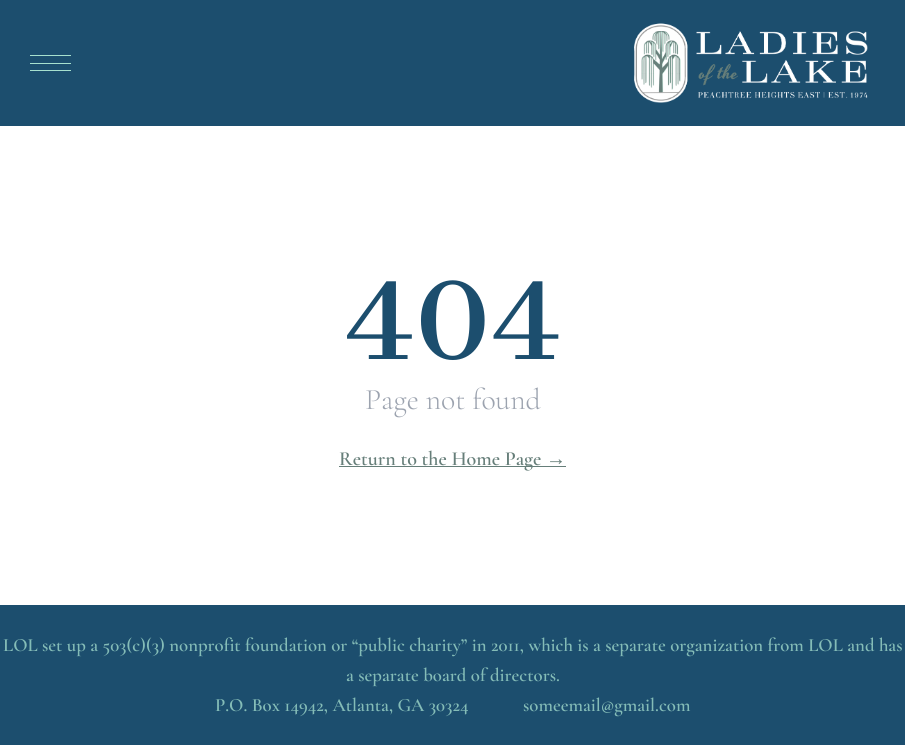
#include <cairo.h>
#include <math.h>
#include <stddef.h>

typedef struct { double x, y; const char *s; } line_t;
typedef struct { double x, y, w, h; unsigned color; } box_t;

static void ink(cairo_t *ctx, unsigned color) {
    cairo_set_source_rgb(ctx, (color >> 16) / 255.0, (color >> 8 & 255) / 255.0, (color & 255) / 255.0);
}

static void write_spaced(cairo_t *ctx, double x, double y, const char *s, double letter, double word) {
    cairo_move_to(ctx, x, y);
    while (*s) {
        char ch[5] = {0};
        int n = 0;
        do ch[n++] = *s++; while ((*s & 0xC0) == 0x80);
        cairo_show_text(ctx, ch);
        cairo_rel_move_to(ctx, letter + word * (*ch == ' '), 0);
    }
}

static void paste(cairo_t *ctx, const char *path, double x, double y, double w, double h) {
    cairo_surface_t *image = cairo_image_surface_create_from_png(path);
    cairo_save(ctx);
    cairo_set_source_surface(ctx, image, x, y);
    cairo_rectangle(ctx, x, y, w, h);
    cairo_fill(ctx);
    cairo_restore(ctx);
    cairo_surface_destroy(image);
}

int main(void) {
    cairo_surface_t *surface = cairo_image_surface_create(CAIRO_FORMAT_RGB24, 905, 745);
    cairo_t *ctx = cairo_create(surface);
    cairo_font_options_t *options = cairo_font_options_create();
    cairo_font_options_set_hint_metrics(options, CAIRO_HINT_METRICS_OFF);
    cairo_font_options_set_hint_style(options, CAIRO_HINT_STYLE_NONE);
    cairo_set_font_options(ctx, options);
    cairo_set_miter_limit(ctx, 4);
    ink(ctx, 0xFFFFFF);
    cairo_paint(ctx);
    {
        static const box_t items[] = {
            {0, 0, 905, 126, 0x1C4E6E},
            {30, 55, 41, 1, 0xA7E1CF},
            {30, 70, 41, 1, 0xA7E1CF},
            {30, 63, 41, 1, 0xA7E1CF},
        };
        for (size_t i = 0; i < sizeof items / sizeof *items; i++) {
            ink(ctx, items[i].color);
            cairo_rectangle(ctx, items[i].x, items[i].y, items[i].w, items[i].h);
            cairo_fill(ctx);
        }
    }
    paste(ctx, "media/1.png", 634, 23, 234, 80);
    cairo_select_font_face(ctx, "Cantata One", CAIRO_FONT_SLANT_NORMAL, CAIRO_FONT_WEIGHT_NORMAL);
    cairo_set_font_size(ctx, 104);
    ink(ctx, 0x1C4E6E);
    write_spaced(ctx, 345, 359, "404", -0.5, 0);
    cairo_select_font_face(ctx, "Cormorant Garamond Light", CAIRO_FONT_SLANT_NORMAL, CAIRO_FONT_WEIGHT_NORMAL);
    cairo_set_font_size(ctx, 29.75);
    ink(ctx, 0x9CA3AF);
    cairo_move_to(ctx, 365, 409);
    cairo_show_text(ctx, "Page not found");
    ink(ctx, 0x667E79);
    cairo_rectangle(ctx, 339, 466, 227, 1);
    cairo_fill(ctx);
    cairo_select_font_face(ctx, "Cormorant Garamond SemiBold", CAIRO_FONT_SLANT_NORMAL, CAIRO_FONT_WEIGHT_NORMAL);
    cairo_set_font_size(ctx, 20);
    cairo_move_to(ctx, 339, 465);
    cairo_show_text(ctx, "Return to the Home Page");
    cairo_select_font_face(ctx, "Liberation Serif", CAIRO_FONT_SLANT_NORMAL, CAIRO_FONT_WEIGHT_BOLD);
    cairo_move_to(ctx, 546, 465);
    cairo_show_text(ctx, "→");
    ink(ctx, 0x1C4E6E);
    cairo_rectangle(ctx, 0, 605, 905, 140);
    cairo_fill(ctx);
    cairo_select_font_face(ctx, "Cormorant Garamond SemiBold", CAIRO_FONT_SLANT_NORMAL, CAIRO_FONT_WEIGHT_NORMAL);
    cairo_set_font_size(ctx, 18.75);
    ink(ctx, 0x84BCB7);
    {
        static const line_t items[] = {
            {3, 651, "LOL set up a 503(c)(3) nonprofit foundation or “public charity” in 2011, which is a separate organization from LOL and has"},
            {346, 681, "a separate board of directors."},
            {215, 711, "P.O. Box 14942, Atlanta, GA 30324"},
            {523, 711, "someemail@gmail.com"},
        };
        for (size_t i = 0; i < sizeof items / sizeof *items; i++) {
            cairo_move_to(ctx, items[i].x, items[i].y);
            cairo_show_text(ctx, items[i].s);
        }
    }
    cairo_surface_write_to_png(surface, "image.png");
    cairo_font_options_destroy(options);
    cairo_destroy(ctx);
    cairo_surface_destroy(surface);
    return 0;
}
